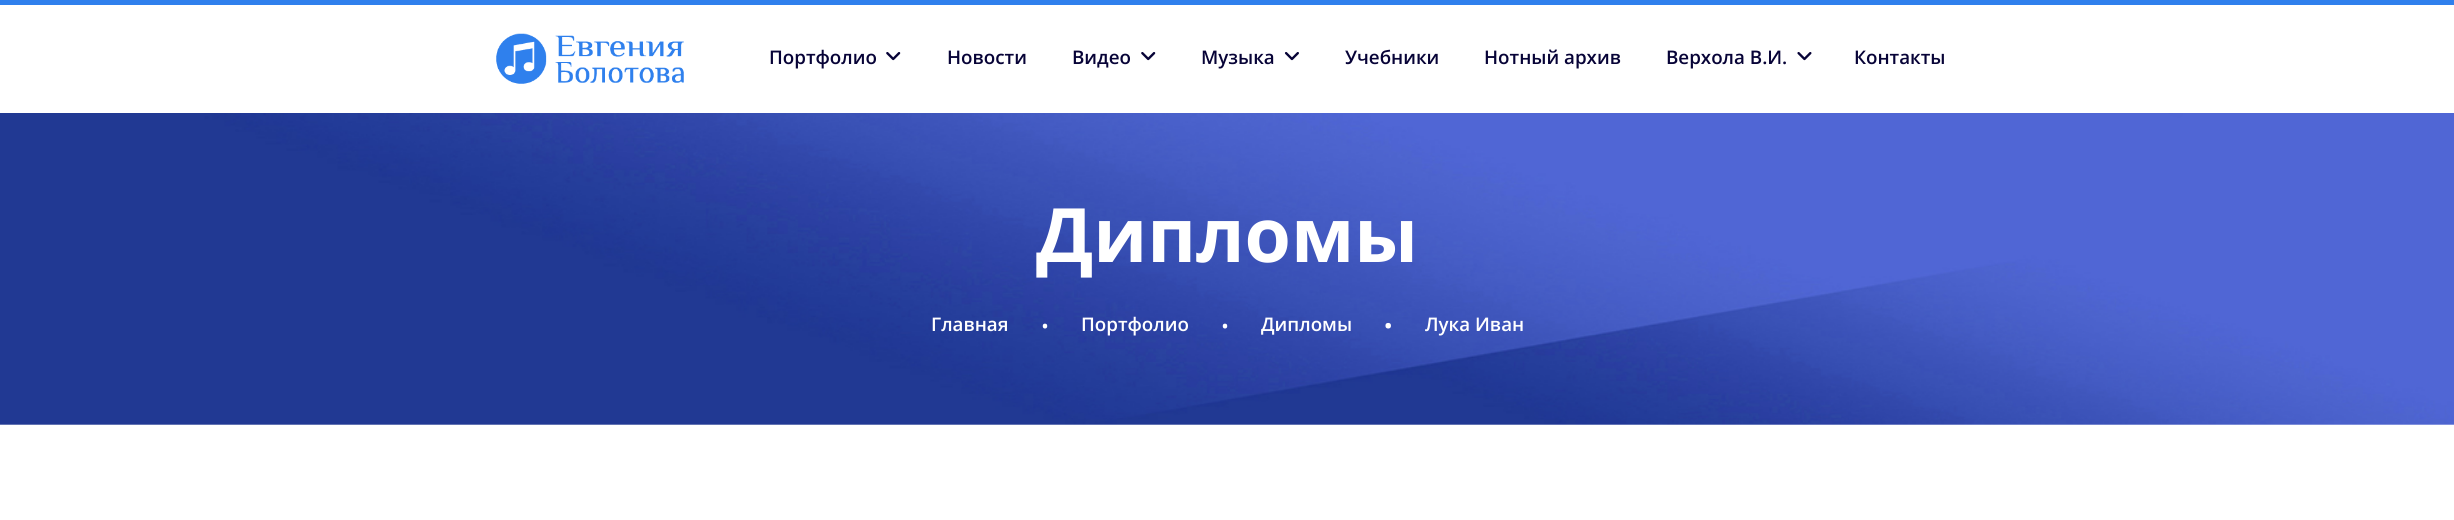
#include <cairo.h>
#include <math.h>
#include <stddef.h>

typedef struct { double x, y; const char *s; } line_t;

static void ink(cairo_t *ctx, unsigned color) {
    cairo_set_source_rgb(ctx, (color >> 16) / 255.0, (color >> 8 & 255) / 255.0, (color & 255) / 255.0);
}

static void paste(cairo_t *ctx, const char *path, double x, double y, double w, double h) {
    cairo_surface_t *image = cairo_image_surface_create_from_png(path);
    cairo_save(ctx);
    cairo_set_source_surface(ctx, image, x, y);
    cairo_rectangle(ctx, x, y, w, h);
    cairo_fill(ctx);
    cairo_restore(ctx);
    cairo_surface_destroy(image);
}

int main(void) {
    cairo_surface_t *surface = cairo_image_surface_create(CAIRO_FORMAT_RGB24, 2454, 520);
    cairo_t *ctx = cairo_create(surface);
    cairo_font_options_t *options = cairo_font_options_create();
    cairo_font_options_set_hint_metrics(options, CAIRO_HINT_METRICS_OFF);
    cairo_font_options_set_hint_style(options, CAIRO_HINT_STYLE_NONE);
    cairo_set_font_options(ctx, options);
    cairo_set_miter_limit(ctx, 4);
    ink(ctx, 0xFFFFFF);
    cairo_paint(ctx);
    ink(ctx, 0x2F80ED);
    cairo_rectangle(ctx, 0, 0, 2454, 5);
    cairo_fill(ctx);
    paste(ctx, "media/1.png", 496, 33, 188, 51);
    cairo_select_font_face(ctx, "Open Sans SemiBold", CAIRO_FONT_SLANT_NORMAL, CAIRO_FONT_WEIGHT_NORMAL);
    cairo_set_font_size(ctx, 18.75);
    ink(ctx, 0x070337);
    cairo_move_to(ctx, 769, 64);
    cairo_show_text(ctx, "Портфолио");
    paste(ctx, "media/2.png", 886, 52, 15, 9);
    cairo_move_to(ctx, 947, 64);
    cairo_show_text(ctx, "Новости");
    cairo_move_to(ctx, 1072, 64);
    cairo_show_text(ctx, "Видео");
    paste(ctx, "media/2.png", 1141, 52, 15, 9);
    cairo_move_to(ctx, 1201, 64);
    cairo_show_text(ctx, "Музыка");
    paste(ctx, "media/3.png", 1284, 52, 15, 9);
    {
        static const line_t items[] = {
            {1345, 64, "Учебники"},
            {1484, 64, "Нотный архив"},
            {1666, 64, "Верхола В.И."},
        };
        for (size_t i = 0; i < sizeof items / sizeof *items; i++) {
            cairo_move_to(ctx, items[i].x, items[i].y);
            cairo_show_text(ctx, items[i].s);
        }
    }
    paste(ctx, "media/4.png", 1797, 52, 15, 9);
    cairo_move_to(ctx, 1854, 64);
    cairo_show_text(ctx, "Контакты");
    paste(ctx, "media/5.png", 0, 113, 2454, 312);
    cairo_select_font_face(ctx, "Open Sans", CAIRO_FONT_SLANT_NORMAL, CAIRO_FONT_WEIGHT_BOLD);
    cairo_set_font_size(ctx, 75);
    ink(ctx, 0xFFFFFF);
    cairo_move_to(ctx, 1036, 262);
    cairo_show_text(ctx, "Дипломы");
    cairo_select_font_face(ctx, "Open Sans SemiBold", CAIRO_FONT_SLANT_NORMAL, CAIRO_FONT_WEIGHT_NORMAL);
    cairo_set_font_size(ctx, 18.75);
    cairo_move_to(ctx, 931, 331);
    cairo_show_text(ctx, "Главная");
    cairo_select_font_face(ctx, "Open Sans", CAIRO_FONT_SLANT_NORMAL, CAIRO_FONT_WEIGHT_NORMAL);
    cairo_set_font_size(ctx, 38);
    cairo_move_to(ctx, 1040, 328);
    cairo_show_text(ctx, ".");
    cairo_select_font_face(ctx, "Open Sans SemiBold", CAIRO_FONT_SLANT_NORMAL, CAIRO_FONT_WEIGHT_NORMAL);
    cairo_set_font_size(ctx, 18.75);
    cairo_move_to(ctx, 1081, 331);
    cairo_show_text(ctx, "Портфолио");
    cairo_select_font_face(ctx, "Open Sans", CAIRO_FONT_SLANT_NORMAL, CAIRO_FONT_WEIGHT_NORMAL);
    cairo_set_font_size(ctx, 38);
    cairo_move_to(ctx, 1220, 328);
    cairo_show_text(ctx, ".");
    cairo_select_font_face(ctx, "Open Sans SemiBold", CAIRO_FONT_SLANT_NORMAL, CAIRO_FONT_WEIGHT_NORMAL);
    cairo_set_font_size(ctx, 18.75);
    cairo_move_to(ctx, 1261, 331);
    cairo_show_text(ctx, "Дипломы");
    cairo_set_font_size(ctx, 38);
    cairo_move_to(ctx, 1383, 328);
    cairo_show_text(ctx, ".");
    cairo_set_font_size(ctx, 18.75);
    cairo_move_to(ctx, 1425, 331);
    cairo_show_text(ctx, "Лука Иван");
    cairo_surface_write_to_png(surface, "image.png");
    cairo_font_options_destroy(options);
    cairo_destroy(ctx);
    cairo_surface_destroy(surface);
    return 0;
}
